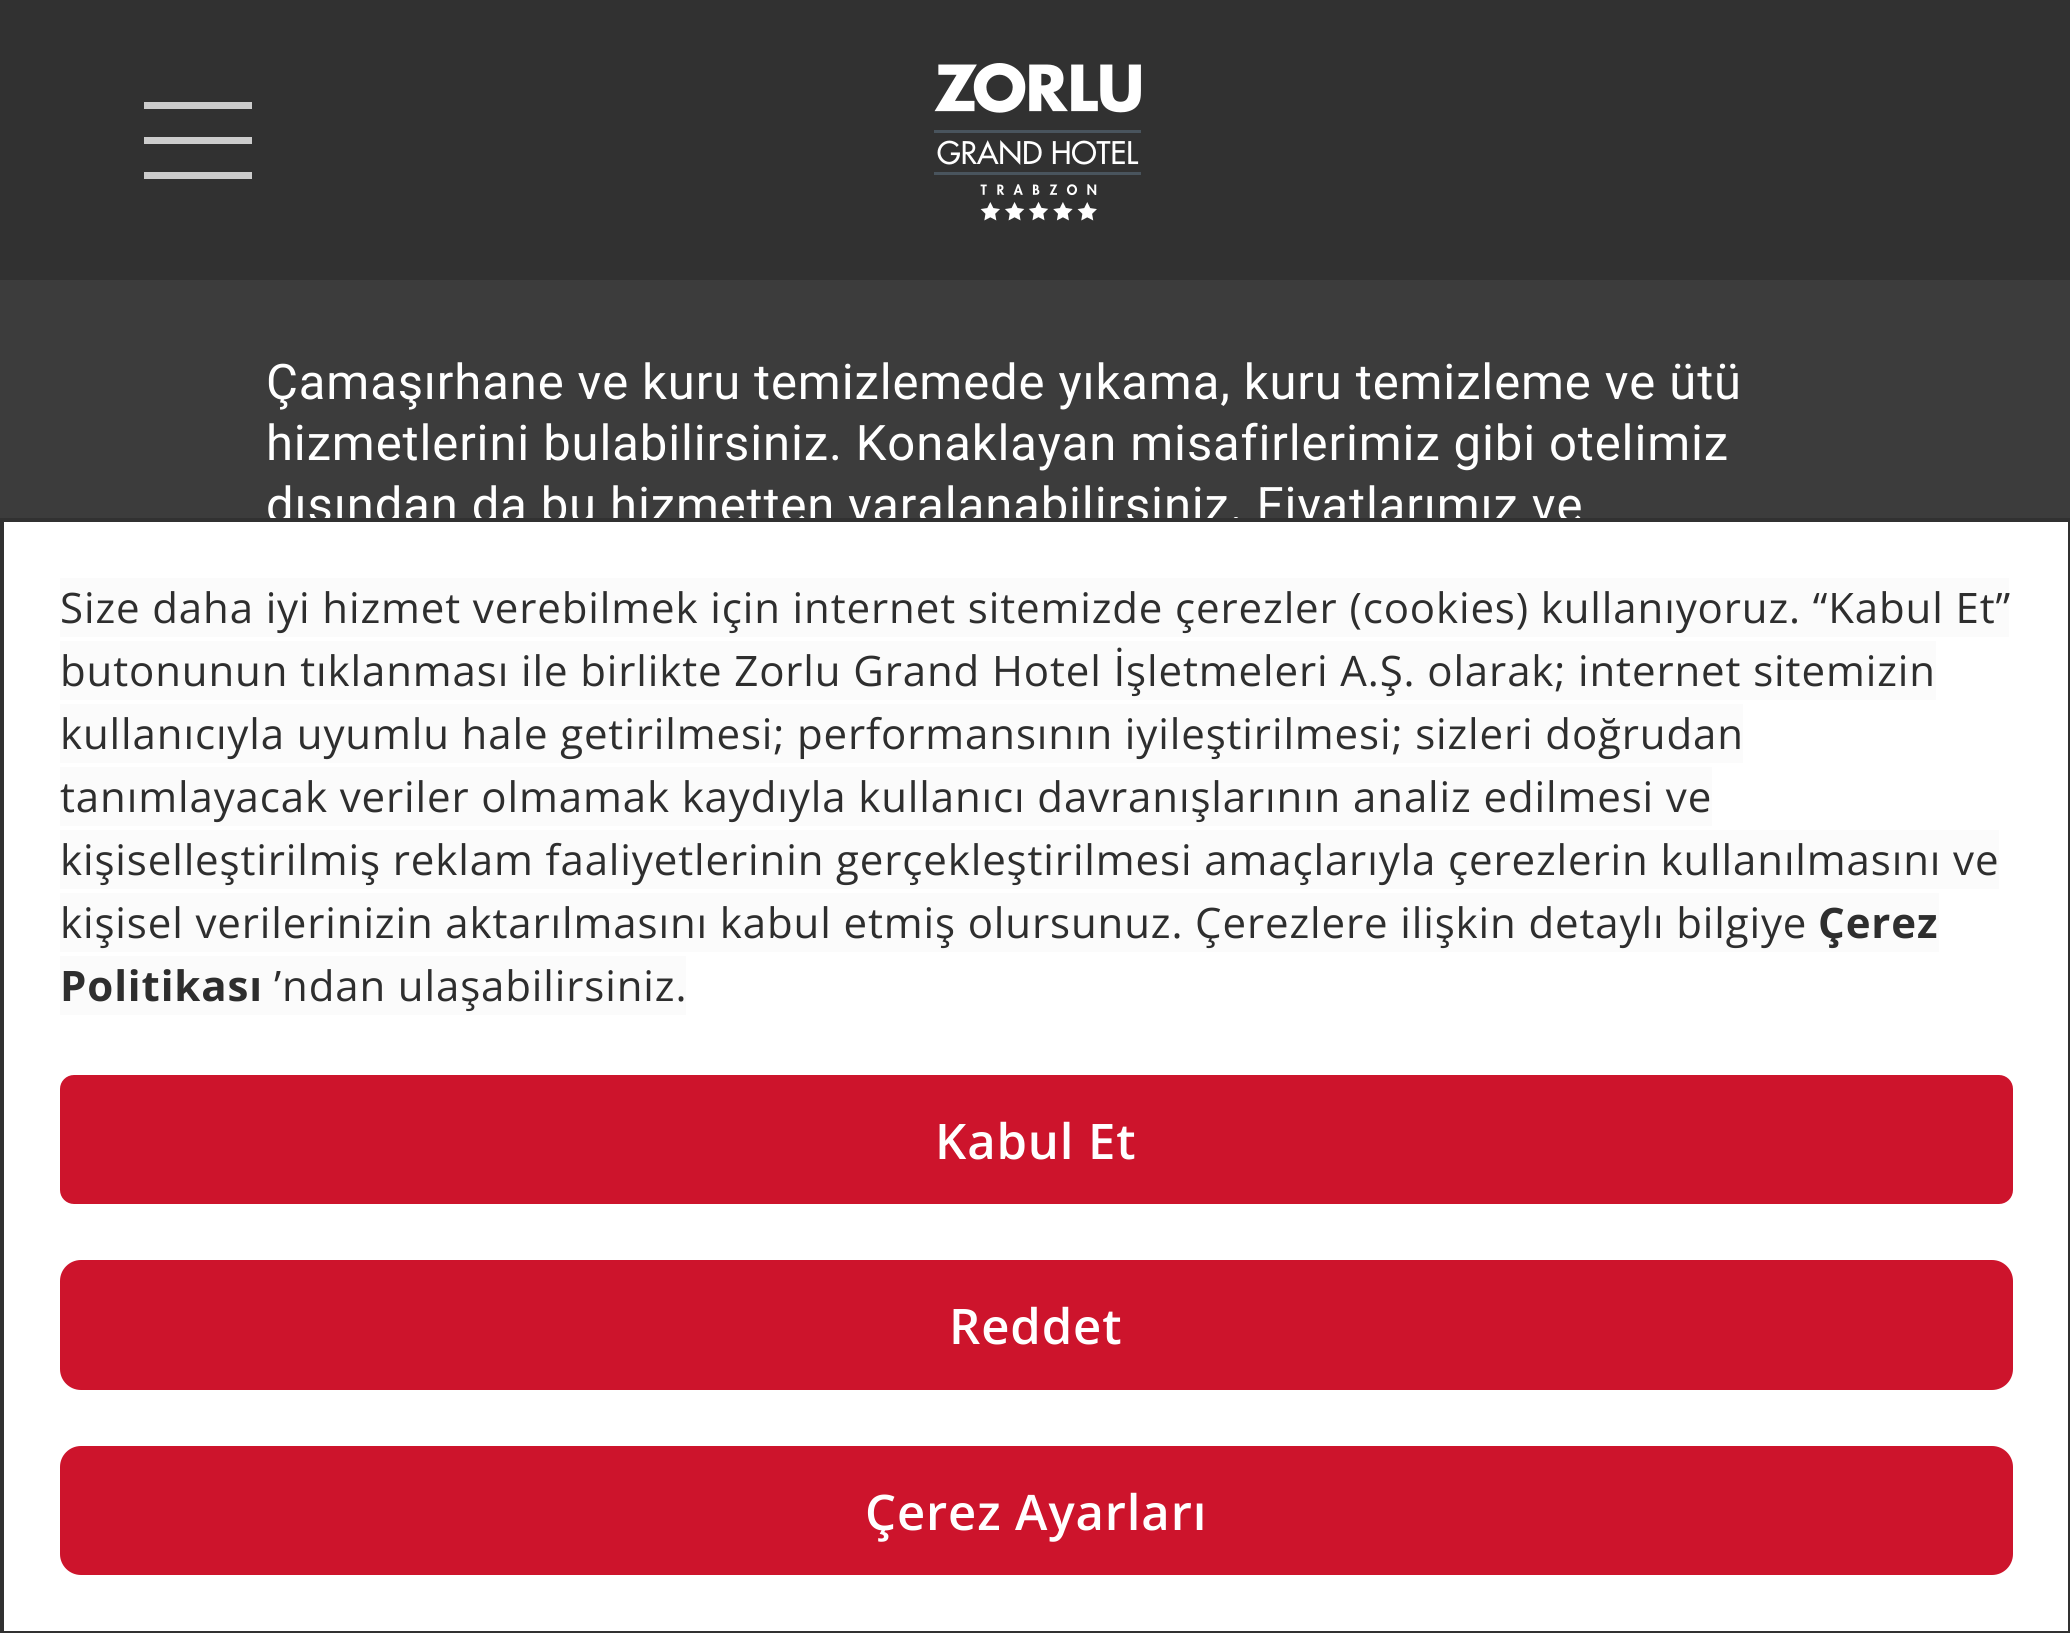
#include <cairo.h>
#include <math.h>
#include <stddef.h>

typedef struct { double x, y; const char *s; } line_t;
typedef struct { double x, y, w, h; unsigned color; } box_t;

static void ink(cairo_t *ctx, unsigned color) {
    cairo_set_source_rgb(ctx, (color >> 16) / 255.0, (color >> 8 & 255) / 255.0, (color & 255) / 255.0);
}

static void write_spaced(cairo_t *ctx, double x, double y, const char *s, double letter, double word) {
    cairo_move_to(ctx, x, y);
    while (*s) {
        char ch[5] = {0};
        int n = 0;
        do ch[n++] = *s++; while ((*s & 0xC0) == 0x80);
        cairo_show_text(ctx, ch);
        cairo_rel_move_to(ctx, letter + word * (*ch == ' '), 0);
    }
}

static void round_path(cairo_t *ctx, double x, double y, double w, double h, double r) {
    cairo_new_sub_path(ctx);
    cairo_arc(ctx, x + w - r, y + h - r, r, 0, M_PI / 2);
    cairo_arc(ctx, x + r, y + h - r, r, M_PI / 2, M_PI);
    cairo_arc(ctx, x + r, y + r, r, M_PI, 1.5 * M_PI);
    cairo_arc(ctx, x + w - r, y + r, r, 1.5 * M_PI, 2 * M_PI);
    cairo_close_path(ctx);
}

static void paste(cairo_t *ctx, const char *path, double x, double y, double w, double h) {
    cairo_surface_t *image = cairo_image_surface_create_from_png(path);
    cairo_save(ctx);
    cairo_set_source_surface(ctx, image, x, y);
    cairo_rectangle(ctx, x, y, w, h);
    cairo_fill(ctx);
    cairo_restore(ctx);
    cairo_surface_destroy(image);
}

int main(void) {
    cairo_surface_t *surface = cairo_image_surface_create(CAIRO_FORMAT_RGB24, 2070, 1633);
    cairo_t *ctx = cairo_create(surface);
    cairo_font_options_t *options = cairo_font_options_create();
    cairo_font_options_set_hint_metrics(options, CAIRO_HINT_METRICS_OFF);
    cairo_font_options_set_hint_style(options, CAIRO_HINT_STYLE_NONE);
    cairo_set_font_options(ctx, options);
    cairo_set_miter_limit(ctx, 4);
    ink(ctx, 0x3C3C3C);
    cairo_paint(ctx);
    {
        static const box_t items[] = {
            {0, 0, 2070, 280, 0x313131},
            {144, 102, 108, 7, 0xCCCCCC},
            {144, 137, 108, 7, 0xCCCCCC},
            {144, 172, 108, 7, 0xCCCCCC},
        };
        for (size_t i = 0; i < sizeof items / sizeof *items; i++) {
            ink(ctx, items[i].color);
            cairo_rectangle(ctx, items[i].x, items[i].y, items[i].w, items[i].h);
            cairo_fill(ctx);
        }
    }
    paste(ctx, "media/1.png", 934, 63, 207, 158);
    cairo_select_font_face(ctx, "Roboto", CAIRO_FONT_SLANT_NORMAL, CAIRO_FONT_WEIGHT_NORMAL);
    cairo_set_font_size(ctx, 49);
    ink(ctx, 0xFFFFFF);
    {
        static const line_t items[] = {
            {266, 399, "Çamaşırhane ve kuru temizlemede yıkama, kuru temizleme ve ütü"},
            {266, 460, "hizmetlerini bulabilirsiniz. Konaklayan misafirlerimiz gibi otelimiz"},
            {266, 522, "dışından da bu hizmetten yaralanabilirsiniz. Fiyatlarımız ve"},
        };
        for (size_t i = 0; i < sizeof items / sizeof *items; i++) {
            write_spaced(ctx, items[i].x, items[i].y, items[i].s, 0.88, 0);
        }
    }
    cairo_rectangle(ctx, 2, 520, 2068, 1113);
    cairo_fill_preserve(ctx);
    ink(ctx, 0x313131);
    cairo_set_line_width(ctx, 4);
    cairo_stroke(ctx);
    ink(ctx, 0xFBFBFB);
    cairo_rectangle(ctx, 60, 578, 1949, 59);
    cairo_fill(ctx);
    cairo_select_font_face(ctx, "Open Sans", CAIRO_FONT_SLANT_NORMAL, CAIRO_FONT_WEIGHT_NORMAL);
    cairo_set_font_size(ctx, 42);
    ink(ctx, 0x2E2E2E);
    write_spaced(ctx, 60, 623, "Size daha iyi hizmet verebilmek için internet sitemizde çerezler (cookies) kullanıyoruz. “Kabul Et”", 0.88, 0);
    ink(ctx, 0xFBFBFB);
    cairo_rectangle(ctx, 60, 641, 1876, 59);
    cairo_fill(ctx);
    ink(ctx, 0x2E2E2E);
    write_spaced(ctx, 60, 686, "butonunun tıklanması ile birlikte Zorlu Grand Hotel İşletmeleri A.Ş. olarak; internet sitemizin", 0.88, 0);
    ink(ctx, 0xFBFBFB);
    cairo_rectangle(ctx, 60, 704, 1683, 59);
    cairo_fill(ctx);
    ink(ctx, 0x2E2E2E);
    write_spaced(ctx, 60, 749, "kullanıcıyla uyumlu hale getirilmesi; performansının iyileştirilmesi; sizleri doğrudan", 0.88, 0);
    ink(ctx, 0xFBFBFB);
    cairo_rectangle(ctx, 60, 767, 1652, 59);
    cairo_fill(ctx);
    ink(ctx, 0x2E2E2E);
    write_spaced(ctx, 60, 812, "tanımlayacak veriler olmamak kaydıyla kullanıcı davranışlarının analiz edilmesi ve", 0.88, 0);
    ink(ctx, 0xFBFBFB);
    cairo_rectangle(ctx, 60, 830, 1939, 59);
    cairo_fill(ctx);
    ink(ctx, 0x2E2E2E);
    write_spaced(ctx, 60, 875, "kişiselleştirilmiş reklam faaliyetlerinin gerçekleştirilmesi amaçlarıyla çerezlerin kullanılmasını ve", 0.88, 0);
    ink(ctx, 0xFBFBFB);
    cairo_rectangle(ctx, 60, 893, 1879, 59);
    cairo_fill(ctx);
    ink(ctx, 0x2E2E2E);
    write_spaced(ctx, 60, 938, "kişisel verilerinizin aktarılmasını kabul etmiş olursunuz. Çerezlere ilişkin detaylı bilgiye", 0.88, 0);
    cairo_select_font_face(ctx, "Open Sans", CAIRO_FONT_SLANT_NORMAL, CAIRO_FONT_WEIGHT_BOLD);
    write_spaced(ctx, 1818, 938, "Çerez", 0.88, 0);
    ink(ctx, 0xFBFBFB);
    cairo_rectangle(ctx, 60, 956, 626, 59);
    cairo_fill(ctx);
    ink(ctx, 0x2E2E2E);
    write_spaced(ctx, 60, 1001, "Politikası", 0.88, 0);
    cairo_select_font_face(ctx, "Open Sans", CAIRO_FONT_SLANT_NORMAL, CAIRO_FONT_WEIGHT_NORMAL);
    write_spaced(ctx, 274, 1001, "’ndan ulaşabilirsiniz.", 0.88, 0);
    ink(ctx, 0xCD142C);
    round_path(ctx, 60, 1075, 1953, 129, 14);
    cairo_fill(ctx);
    cairo_select_font_face(ctx, "Open Sans SemiBold", CAIRO_FONT_SLANT_NORMAL, CAIRO_FONT_WEIGHT_NORMAL);
    cairo_set_font_size(ctx, 49);
    ink(ctx, 0xFFFFFF);
    write_spaced(ctx, 935, 1159, "Kabul Et", 0.88, 0);
    ink(ctx, 0xCD142C);
    round_path(ctx, 60, 1260, 1953, 130, 21);
    cairo_fill(ctx);
    ink(ctx, 0xFFFFFF);
    write_spaced(ctx, 949, 1344, "Reddet", 0.88, 0);
    ink(ctx, 0xCD142C);
    round_path(ctx, 60, 1446, 1953, 129, 21);
    cairo_fill(ctx);
    ink(ctx, 0xFFFFFF);
    write_spaced(ctx, 865, 1530, "Çerez Ayarları", 0.88, 0);
    cairo_surface_write_to_png(surface, "image.png");
    cairo_font_options_destroy(options);
    cairo_destroy(ctx);
    cairo_surface_destroy(surface);
    return 0;
}
